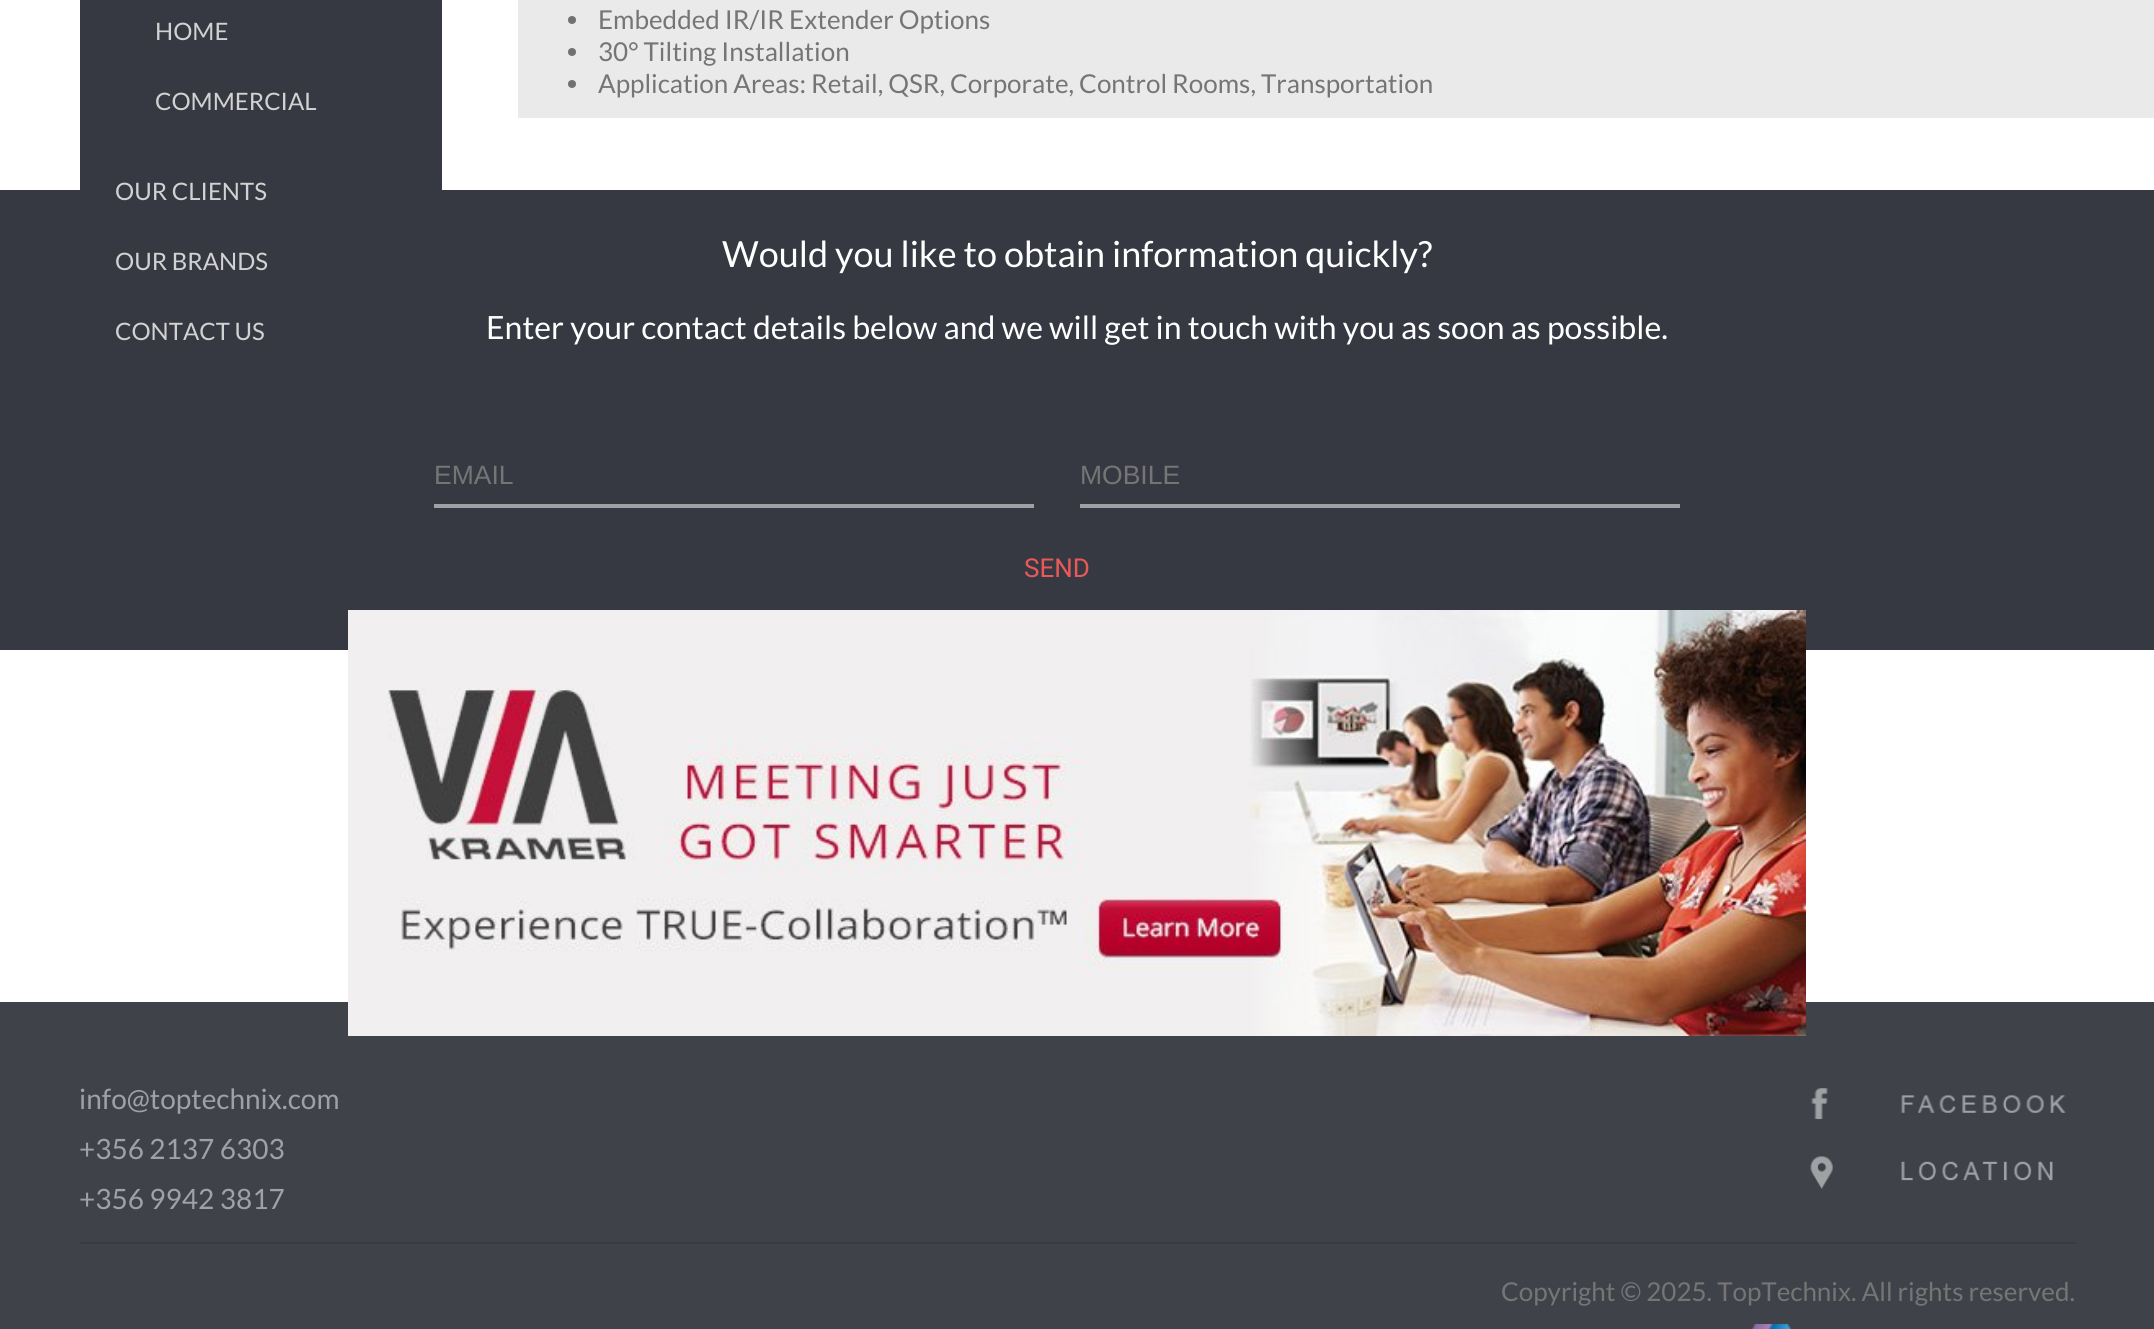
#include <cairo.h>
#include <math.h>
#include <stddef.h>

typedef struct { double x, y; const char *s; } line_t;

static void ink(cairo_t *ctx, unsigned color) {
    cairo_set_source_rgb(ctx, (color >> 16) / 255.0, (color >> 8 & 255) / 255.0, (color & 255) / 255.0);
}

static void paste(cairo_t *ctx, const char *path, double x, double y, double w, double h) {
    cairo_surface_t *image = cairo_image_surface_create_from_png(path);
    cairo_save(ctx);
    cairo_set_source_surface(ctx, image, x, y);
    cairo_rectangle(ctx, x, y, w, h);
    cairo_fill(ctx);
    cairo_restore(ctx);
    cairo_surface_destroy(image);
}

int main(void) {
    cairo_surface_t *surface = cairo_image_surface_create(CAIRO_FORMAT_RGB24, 2154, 1329);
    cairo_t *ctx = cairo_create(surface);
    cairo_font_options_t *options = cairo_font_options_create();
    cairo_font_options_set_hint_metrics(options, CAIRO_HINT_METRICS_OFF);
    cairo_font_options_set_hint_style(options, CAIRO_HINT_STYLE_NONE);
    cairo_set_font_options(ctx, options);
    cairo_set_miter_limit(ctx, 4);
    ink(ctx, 0xFFFFFF);
    cairo_paint(ctx);
    ink(ctx, 0x373942);
    cairo_rectangle(ctx, 80, 0, 362, 190);
    cairo_fill(ctx);
    cairo_select_font_face(ctx, "Lato", CAIRO_FONT_SLANT_NORMAL, CAIRO_FONT_WEIGHT_NORMAL);
    cairo_set_font_size(ctx, 24);
    ink(ctx, 0xD2D2D2);
    cairo_move_to(ctx, 155, 40);
    cairo_show_text(ctx, "HOME");
    cairo_move_to(ctx, 155, 110);
    cairo_show_text(ctx, "COMMERCIAL");
    ink(ctx, 0x373942);
    cairo_rectangle(ctx, 0, 190, 2154, 460);
    cairo_fill(ctx);
    ink(ctx, 0xD2D2D2);
    {
        static const line_t items[] = {
            {115, 200, "OUR CLIENTS"},
            {115, 270, "OUR BRANDS"},
            {115, 340, "CONTACT US"},
        };
        for (size_t i = 0; i < sizeof items / sizeof *items; i++) {
            cairo_move_to(ctx, items[i].x, items[i].y);
            cairo_show_text(ctx, items[i].s);
        }
    }
    ink(ctx, 0xEAEAEA);
    cairo_rectangle(ctx, 518, 0, 1636, 118);
    cairo_fill(ctx);
    ink(ctx, 0x717171);
    cairo_arc(ctx, 572, 20, 4, 0, 2 * M_PI);
    cairo_fill(ctx);
    cairo_set_font_size(ctx, 26);
    ink(ctx, 0x757575);
    cairo_move_to(ctx, 598, 29);
    cairo_show_text(ctx, "Embedded IR/IR Extender Options");
    ink(ctx, 0x717171);
    cairo_new_path(ctx);
    cairo_arc(ctx, 572, 52, 4, 0, 2 * M_PI);
    cairo_fill(ctx);
    ink(ctx, 0x757575);
    cairo_move_to(ctx, 598, 61);
    cairo_show_text(ctx, "30° Tilting Installation");
    ink(ctx, 0x717171);
    cairo_new_path(ctx);
    cairo_arc(ctx, 572, 84, 4, 0, 2 * M_PI);
    cairo_fill(ctx);
    ink(ctx, 0x757575);
    cairo_move_to(ctx, 598, 93);
    cairo_show_text(ctx, "Application Areas: Retail, QSR, Corporate, Control Rooms, Transportation");
    cairo_set_font_size(ctx, 36);
    ink(ctx, 0xFFFFFF);
    cairo_move_to(ctx, 722, 267);
    cairo_show_text(ctx, "Would you like to obtain information quickly?");
    cairo_set_font_size(ctx, 32);
    cairo_move_to(ctx, 486, 339);
    cairo_show_text(ctx, "Enter your contact details below and we will get in touch with you as soon as possible.");
    ink(ctx, 0xA0A1A4);
    cairo_rectangle(ctx, 434, 504, 600, 4);
    cairo_fill(ctx);
    cairo_select_font_face(ctx, "Liberation Sans", CAIRO_FONT_SLANT_NORMAL, CAIRO_FONT_WEIGHT_NORMAL);
    cairo_set_font_size(ctx, 26.5);
    ink(ctx, 0x757575);
    cairo_move_to(ctx, 434, 484);
    cairo_show_text(ctx, "EMAIL");
    ink(ctx, 0xA0A1A4);
    cairo_rectangle(ctx, 1080, 504, 600, 4);
    cairo_fill(ctx);
    ink(ctx, 0x757575);
    cairo_move_to(ctx, 1080, 484);
    cairo_show_text(ctx, "MOBILE");
    cairo_select_font_face(ctx, "Roboto", CAIRO_FONT_SLANT_NORMAL, CAIRO_FONT_WEIGHT_NORMAL);
    cairo_set_font_size(ctx, 26);
    ink(ctx, 0xEA5959);
    cairo_move_to(ctx, 1024, 577);
    cairo_show_text(ctx, "SEND");
    ink(ctx, 0x404249);
    cairo_rectangle(ctx, 0, 1002, 2154, 327);
    cairo_fill(ctx);
    paste(ctx, "media/1.png", 348, 610, 1458, 426);
    cairo_select_font_face(ctx, "Lato", CAIRO_FONT_SLANT_NORMAL, CAIRO_FONT_WEIGHT_NORMAL);
    cairo_set_font_size(ctx, 28);
    ink(ctx, 0xA0A1A4);
    {
        static const line_t items[] = {
            {79, 1109, "info@toptechnix.com"},
            {79, 1159, "+356 2137 6303"},
            {79, 1209, "+356 9942 3817"},
        };
        for (size_t i = 0; i < sizeof items / sizeof *items; i++) {
            cairo_move_to(ctx, items[i].x, items[i].y);
            cairo_show_text(ctx, items[i].s);
        }
    }
    paste(ctx, "media/2.png", 1811, 1088, 255, 32);
    paste(ctx, "media/3.png", 1810, 1156, 243, 33);
    ink(ctx, 0x393A3D);
    cairo_rectangle(ctx, 80, 1242, 1996, 2);
    cairo_fill(ctx);
    cairo_set_font_size(ctx, 26);
    ink(ctx, 0x757575);
    cairo_move_to(ctx, 1501, 1301);
    cairo_show_text(ctx, "Copyright © 2025. TopTechnix. All rights reserved.");
    paste(ctx, "media/4.png", 1751, 1324, 42, 5);
    cairo_surface_write_to_png(surface, "image.png");
    cairo_font_options_destroy(options);
    cairo_destroy(ctx);
    cairo_surface_destroy(surface);
    return 0;
}
